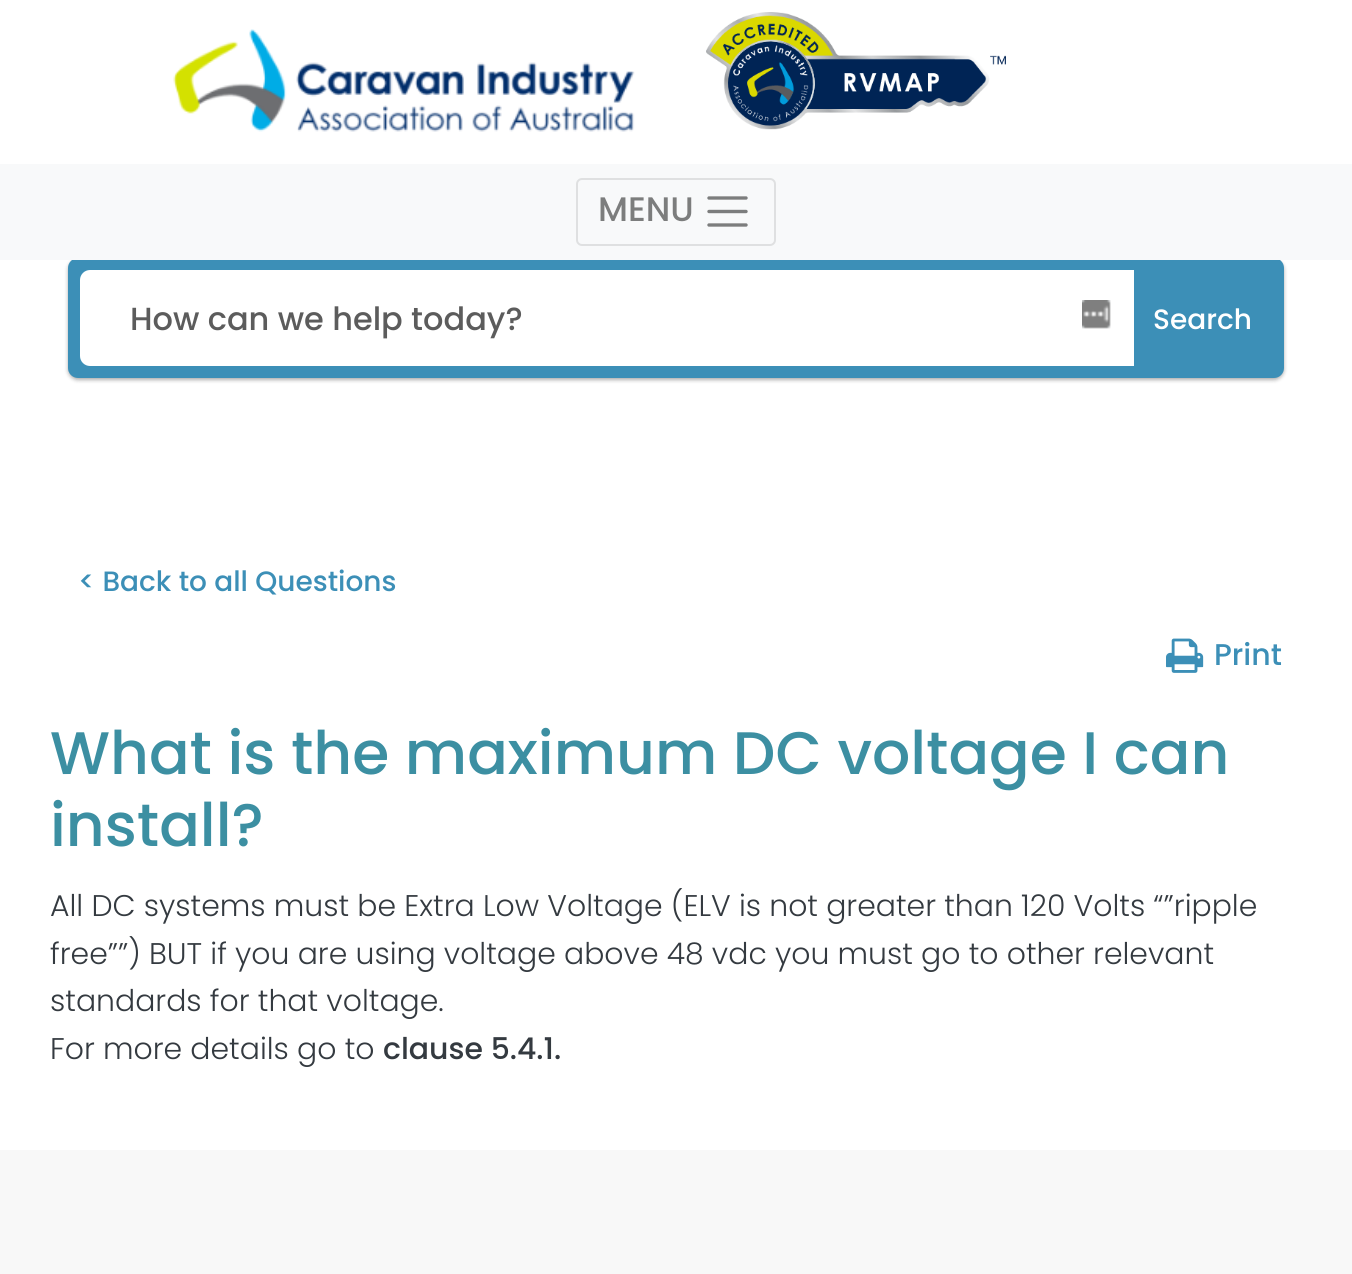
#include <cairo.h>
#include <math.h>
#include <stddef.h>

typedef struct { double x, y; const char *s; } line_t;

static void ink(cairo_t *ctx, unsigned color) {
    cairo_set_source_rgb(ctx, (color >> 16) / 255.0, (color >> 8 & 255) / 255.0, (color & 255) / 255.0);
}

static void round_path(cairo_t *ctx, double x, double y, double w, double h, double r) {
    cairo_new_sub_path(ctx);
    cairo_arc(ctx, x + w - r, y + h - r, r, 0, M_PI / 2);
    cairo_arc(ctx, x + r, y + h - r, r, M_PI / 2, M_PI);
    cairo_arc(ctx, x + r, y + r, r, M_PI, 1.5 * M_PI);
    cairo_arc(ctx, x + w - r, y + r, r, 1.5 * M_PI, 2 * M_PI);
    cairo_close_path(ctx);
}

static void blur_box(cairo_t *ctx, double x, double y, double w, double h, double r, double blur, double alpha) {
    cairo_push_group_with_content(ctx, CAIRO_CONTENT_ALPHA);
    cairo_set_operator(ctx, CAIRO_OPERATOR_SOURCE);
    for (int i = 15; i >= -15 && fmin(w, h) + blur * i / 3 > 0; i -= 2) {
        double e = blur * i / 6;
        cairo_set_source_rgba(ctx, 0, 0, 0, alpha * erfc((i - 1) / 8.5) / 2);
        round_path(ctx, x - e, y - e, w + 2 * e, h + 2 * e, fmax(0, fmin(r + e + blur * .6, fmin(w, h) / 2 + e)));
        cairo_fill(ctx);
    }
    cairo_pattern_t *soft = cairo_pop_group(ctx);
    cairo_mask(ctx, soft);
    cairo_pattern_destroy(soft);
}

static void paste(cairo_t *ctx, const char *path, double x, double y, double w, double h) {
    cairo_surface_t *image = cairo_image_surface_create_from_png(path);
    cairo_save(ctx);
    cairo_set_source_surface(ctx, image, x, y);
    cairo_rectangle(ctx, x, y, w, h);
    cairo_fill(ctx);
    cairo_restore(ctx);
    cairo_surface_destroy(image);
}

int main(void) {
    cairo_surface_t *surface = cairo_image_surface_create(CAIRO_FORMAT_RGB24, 1352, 1274);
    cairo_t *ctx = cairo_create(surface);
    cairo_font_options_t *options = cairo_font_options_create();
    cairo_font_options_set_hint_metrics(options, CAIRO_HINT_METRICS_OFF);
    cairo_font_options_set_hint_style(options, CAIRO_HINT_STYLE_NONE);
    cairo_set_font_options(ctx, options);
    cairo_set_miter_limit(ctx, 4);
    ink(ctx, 0xFFFFFF);
    cairo_paint(ctx);
    paste(ctx, "media/1.png", 173, 29, 462, 103);
    paste(ctx, "media/2.png", 706, 12, 300, 118);
    ink(ctx, 0x000000);
    blur_box(ctx, 68, 260, 1216, 120, 10, 2, 0.32);
    ink(ctx, 0x3C8FB7);
    round_path(ctx, 68, 258, 1216, 120, 10);
    cairo_fill(ctx);
    ink(ctx, 0xF8F9FA);
    cairo_rectangle(ctx, 0, 164, 1352, 96);
    cairo_fill(ctx);
    round_path(ctx, 577, 179, 198, 66, 5);
    ink(ctx, 0xDFE0E1);
    cairo_stroke(ctx);
    cairo_select_font_face(ctx, "Poppins Medium", CAIRO_FONT_SLANT_NORMAL, CAIRO_FONT_WEIGHT_NORMAL);
    cairo_set_font_size(ctx, 34);
    ink(ctx, 0x7C7D7D);
    cairo_move_to(ctx, 598, 221);
    cairo_show_text(ctx, "MENU");
    cairo_new_path(ctx);
    cairo_move_to(ctx, 709, 198);
    cairo_line_to(ctx, 746, 198);
    cairo_move_to(ctx, 709, 211.5);
    cairo_line_to(ctx, 746, 211.5);
    cairo_move_to(ctx, 709, 225);
    cairo_line_to(ctx, 746, 225);
    cairo_set_line_width(ctx, 3.4);
    cairo_set_line_cap(ctx, CAIRO_LINE_CAP_ROUND);
    cairo_stroke(ctx);
    ink(ctx, 0xFFFFFF);
    cairo_new_path(ctx);
    cairo_move_to(ctx, 90, 270);
    cairo_line_to(ctx, 1134, 270);
    cairo_line_to(ctx, 1134, 366);
    cairo_line_to(ctx, 90, 366);
    cairo_curve_to(ctx, 84.5, 366, 80, 361.5, 80, 356);
    cairo_line_to(ctx, 80, 280);
    cairo_curve_to(ctx, 80, 274.5, 84.5, 270, 90, 270);
    cairo_close_path(ctx);
    cairo_fill(ctx);
    paste(ctx, "media/3.png", 1082, 300, 29, 29);
    cairo_set_font_size(ctx, 32);
    ink(ctx, 0x5C5C5C);
    cairo_move_to(ctx, 130, 330);
    cairo_show_text(ctx, "How can we help today?");
    cairo_set_font_size(ctx, 28);
    ink(ctx, 0xFFFFFF);
    cairo_move_to(ctx, 1153, 329);
    cairo_show_text(ctx, "Search");
    ink(ctx, 0x3C8FB7);
    cairo_move_to(ctx, 78, 591);
    cairo_show_text(ctx, "< Back to all Questions");
    paste(ctx, "media/4.png", 1166, 638, 38, 35);
    cairo_set_font_size(ctx, 30);
    cairo_move_to(ctx, 1214, 665);
    cairo_show_text(ctx, "Print");
    cairo_set_font_size(ctx, 60);
    ink(ctx, 0x3C8FA2);
    cairo_move_to(ctx, 50, 774);
    cairo_show_text(ctx, "What is the maximum DC voltage I can");
    cairo_move_to(ctx, 50, 846);
    cairo_show_text(ctx, "install?");
    cairo_select_font_face(ctx, "Poppins Light", CAIRO_FONT_SLANT_NORMAL, CAIRO_FONT_WEIGHT_NORMAL);
    cairo_set_font_size(ctx, 29.9);
    ink(ctx, 0x343A40);
    {
        static const line_t items[] = {
            {50, 916, "All DC systems must be Extra Low Voltage (ELV is not greater than 120 Volts “”ripple"},
            {50, 964, "free””) BUT if you are using voltage above 48 vdc you must go to other relevant"},
            {50, 1011, "standards for that voltage."},
            {50, 1059, "For more details go to"},
        };
        for (size_t i = 0; i < sizeof items / sizeof *items; i++) {
            cairo_move_to(ctx, items[i].x, items[i].y);
            cairo_show_text(ctx, items[i].s);
        }
    }
    cairo_select_font_face(ctx, "Poppins Medium", CAIRO_FONT_SLANT_NORMAL, CAIRO_FONT_WEIGHT_NORMAL);
    cairo_move_to(ctx, 383, 1059);
    cairo_show_text(ctx, "clause 5.4.1.");
    ink(ctx, 0xF8F8F8);
    cairo_rectangle(ctx, 0, 1150, 1352, 124);
    cairo_fill(ctx);
    cairo_surface_write_to_png(surface, "image.png");
    cairo_font_options_destroy(options);
    cairo_destroy(ctx);
    cairo_surface_destroy(surface);
    return 0;
}
